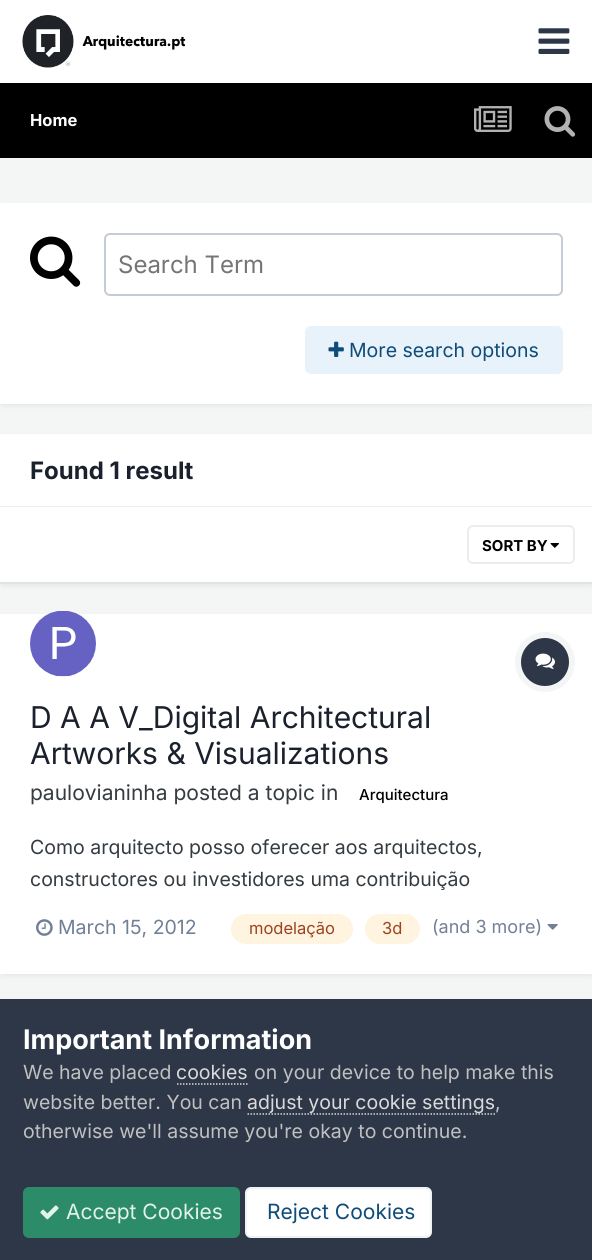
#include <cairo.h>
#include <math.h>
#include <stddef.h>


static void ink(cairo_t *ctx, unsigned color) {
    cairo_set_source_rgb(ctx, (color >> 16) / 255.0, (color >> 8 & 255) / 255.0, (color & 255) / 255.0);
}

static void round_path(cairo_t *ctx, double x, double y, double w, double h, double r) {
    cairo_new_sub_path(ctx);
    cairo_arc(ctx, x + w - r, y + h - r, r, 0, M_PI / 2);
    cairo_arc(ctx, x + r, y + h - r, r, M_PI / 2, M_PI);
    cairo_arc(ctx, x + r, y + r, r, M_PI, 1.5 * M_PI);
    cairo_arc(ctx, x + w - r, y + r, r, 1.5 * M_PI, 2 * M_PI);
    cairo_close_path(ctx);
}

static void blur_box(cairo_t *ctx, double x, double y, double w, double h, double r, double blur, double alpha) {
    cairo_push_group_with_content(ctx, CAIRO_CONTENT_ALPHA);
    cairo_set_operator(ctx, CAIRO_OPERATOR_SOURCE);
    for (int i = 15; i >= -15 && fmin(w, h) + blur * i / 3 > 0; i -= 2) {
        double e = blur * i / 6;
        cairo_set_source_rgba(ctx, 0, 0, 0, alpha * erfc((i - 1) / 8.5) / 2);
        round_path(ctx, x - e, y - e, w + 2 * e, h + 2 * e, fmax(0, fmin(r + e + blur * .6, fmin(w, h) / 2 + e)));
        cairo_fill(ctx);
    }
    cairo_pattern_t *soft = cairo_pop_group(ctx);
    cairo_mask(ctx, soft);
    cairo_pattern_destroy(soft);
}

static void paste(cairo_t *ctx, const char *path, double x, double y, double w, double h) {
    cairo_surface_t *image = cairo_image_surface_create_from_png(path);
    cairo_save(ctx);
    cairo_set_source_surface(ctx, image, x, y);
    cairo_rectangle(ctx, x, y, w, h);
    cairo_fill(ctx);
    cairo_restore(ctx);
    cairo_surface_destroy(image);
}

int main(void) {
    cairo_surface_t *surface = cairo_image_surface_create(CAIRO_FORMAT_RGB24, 592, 1260);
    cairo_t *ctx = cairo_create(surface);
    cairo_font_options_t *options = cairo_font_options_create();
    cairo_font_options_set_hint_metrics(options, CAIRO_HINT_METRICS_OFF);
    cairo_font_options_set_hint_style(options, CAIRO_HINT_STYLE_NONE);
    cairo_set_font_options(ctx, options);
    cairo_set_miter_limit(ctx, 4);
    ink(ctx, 0xF3F6F4);
    cairo_paint(ctx);
    ink(ctx, 0xFFFFFF);
    cairo_rectangle(ctx, 0, 0, 592, 83);
    cairo_fill(ctx);
    paste(ctx, "media/1.png", 22, 15, 164, 53);
    paste(ctx, "media/2.png", 538, 28, 32, 26);
    ink(ctx, 0x000000);
    cairo_rectangle(ctx, 0, 83, 592, 75);
    cairo_fill(ctx);
    cairo_select_font_face(ctx, "Inter", CAIRO_FONT_SLANT_NORMAL, CAIRO_FONT_WEIGHT_BOLD);
    cairo_set_font_size(ctx, 16.5);
    ink(ctx, 0xFFFFFF);
    cairo_move_to(ctx, 30, 126);
    cairo_show_text(ctx, "Home");
    paste(ctx, "media/3.png", 474, 106, 38, 26);
    paste(ctx, "media/4.png", 544, 106, 32, 31);
    ink(ctx, 0x2D3748);
    blur_box(ctx, 2, 207, 589, 198, 0, 3, 0.1);
    ink(ctx, 0xFFFFFF);
    cairo_rectangle(ctx, 0, 203, 592, 201);
    cairo_fill(ctx);
    paste(ctx, "media/5.png", 30, 236, 51, 51);
    round_path(ctx, 105, 234, 457, 61, 5);
    ink(ctx, 0xC6CCD5);
    cairo_stroke(ctx);
    cairo_select_font_face(ctx, "Inter", CAIRO_FONT_SLANT_NORMAL, CAIRO_FONT_WEIGHT_NORMAL);
    cairo_set_font_size(ctx, 24);
    ink(ctx, 0x757575);
    cairo_move_to(ctx, 118, 273);
    cairo_show_text(ctx, "Search Term");
    ink(ctx, 0xE8F2FA);
    round_path(ctx, 305, 326, 258, 48, 6);
    cairo_fill(ctx);
    paste(ctx, "media/6.png", 328, 341, 16, 16);
    cairo_set_font_size(ctx, 19.5);
    ink(ctx, 0x0E4C79);
    cairo_move_to(ctx, 349, 357);
    cairo_show_text(ctx, "More search options");
    ink(ctx, 0x2D3748);
    blur_box(ctx, 2, 438, 589, 147, 0, 3, 0.1);
    ink(ctx, 0xFFFFFF);
    cairo_rectangle(ctx, 0, 434, 592, 72);
    cairo_fill(ctx);
    ink(ctx, 0xEAECEF);
    cairo_rectangle(ctx, 0, 506, 592, 1);
    cairo_fill(ctx);
    cairo_select_font_face(ctx, "Inter", CAIRO_FONT_SLANT_NORMAL, CAIRO_FONT_WEIGHT_BOLD);
    cairo_set_font_size(ctx, 24);
    ink(ctx, 0x1A202C);
    cairo_move_to(ctx, 30, 479);
    cairo_show_text(ctx, "Found 1 result");
    ink(ctx, 0xFFFFFF);
    cairo_rectangle(ctx, 0, 507, 592, 75);
    cairo_fill(ctx);
    ink(ctx, 0xE1E2E3);
    cairo_rectangle(ctx, 0, 582, 592, 2);
    cairo_fill(ctx);
    paste(ctx, "media/7.png", 550, 543, 9, 5);
    round_path(ctx, 468, 526, 106, 37, 5);
    ink(ctx, 0xEBECEC);
    cairo_stroke(ctx);
    cairo_set_font_size(ctx, 15);
    ink(ctx, 0x000000);
    cairo_move_to(ctx, 482, 551);
    cairo_show_text(ctx, "SORT BY");
    ink(ctx, 0x2D3748);
    blur_box(ctx, 2, 618, 589, 357, 0, 3, 0.1);
    ink(ctx, 0xFFFFFF);
    cairo_rectangle(ctx, 0, 614, 592, 360);
    cairo_fill(ctx);
    cairo_arc(ctx, 63, 644, 33, 0, 2 * M_PI);
    cairo_fill(ctx);
    paste(ctx, "media/8.png", 30, 611, 66, 66);
    cairo_arc(ctx, 545, 662, 27, 0, 2 * M_PI);
    ink(ctx, 0xF3F6F4);
    cairo_set_line_width(ctx, 6);
    cairo_stroke(ctx);
    ink(ctx, 0x2D3748);
    cairo_arc(ctx, 545, 662, 24, 0, 2 * M_PI);
    cairo_fill(ctx);
    paste(ctx, "media/9.png", 535, 653, 20, 16);
    cairo_select_font_face(ctx, "Inter", CAIRO_FONT_SLANT_NORMAL, CAIRO_FONT_WEIGHT_NORMAL);
    cairo_set_font_size(ctx, 30);
    ink(ctx, 0x1A202C);
    cairo_move_to(ctx, 30, 728);
    cairo_show_text(ctx, "D A A V_Digital Architectural");
    cairo_move_to(ctx, 30, 764);
    cairo_show_text(ctx, "Artworks & Visualizations");
    cairo_set_font_size(ctx, 21);
    ink(ctx, 0x353C41);
    cairo_move_to(ctx, 30, 800);
    cairo_show_text(ctx, "paulovianinha posted a topic in");
    cairo_select_font_face(ctx, "Inter Medium", CAIRO_FONT_SLANT_NORMAL, CAIRO_FONT_WEIGHT_NORMAL);
    cairo_set_font_size(ctx, 15);
    ink(ctx, 0x000000);
    cairo_move_to(ctx, 359, 800);
    cairo_show_text(ctx, "Arquitectura");
    cairo_select_font_face(ctx, "Inter", CAIRO_FONT_SLANT_NORMAL, CAIRO_FONT_WEIGHT_NORMAL);
    cairo_set_font_size(ctx, 19.5);
    ink(ctx, 0x353C41);
    cairo_move_to(ctx, 30, 854);
    cairo_show_text(ctx, "Como arquitecto posso oferecer aos arquitectos,");
    cairo_move_to(ctx, 30, 886);
    cairo_show_text(ctx, "constructores ou investidores uma contribuição");
    paste(ctx, "media/10.png", 36, 919, 17, 17);
    ink(ctx, 0x718096);
    cairo_move_to(ctx, 58, 934);
    cairo_show_text(ctx, "March 15, 2012");
    ink(ctx, 0xFFF4DF);
    round_path(ctx, 231, 914, 122, 30, 15);
    cairo_fill(ctx);
    cairo_set_font_size(ctx, 16.5);
    ink(ctx, 0x9C4221);
    cairo_move_to(ctx, 249, 934);
    cairo_show_text(ctx, "modelação");
    ink(ctx, 0xFFF4DF);
    round_path(ctx, 365, 914, 55, 30, 15);
    cairo_fill(ctx);
    ink(ctx, 0x9C4221);
    cairo_move_to(ctx, 382, 934);
    cairo_show_text(ctx, "3d");
    cairo_set_font_size(ctx, 18);
    ink(ctx, 0x718096);
    cairo_move_to(ctx, 432, 933);
    cairo_show_text(ctx, "(and 3 more)");
    paste(ctx, "media/11.png", 547, 924, 11, 6);
    ink(ctx, 0x2D3748);
    cairo_rectangle(ctx, 0, 999, 592, 261);
    cairo_fill(ctx);
    cairo_select_font_face(ctx, "Inter", CAIRO_FONT_SLANT_NORMAL, CAIRO_FONT_WEIGHT_BOLD);
    cairo_set_font_size(ctx, 27);
    ink(ctx, 0xFFFFFF);
    cairo_move_to(ctx, 23, 1049);
    cairo_show_text(ctx, "Important Information");
    cairo_select_font_face(ctx, "Inter", CAIRO_FONT_SLANT_NORMAL, CAIRO_FONT_WEIGHT_NORMAL);
    cairo_set_font_size(ctx, 19.5);
    ink(ctx, 0xC0C0C0);
    cairo_move_to(ctx, 23, 1079);
    cairo_show_text(ctx, "We have placed");
    ink(ctx, 0xDADADA);
    cairo_move_to(ctx, 176, 1079);
    cairo_show_text(ctx, "cookies");
    cairo_new_path(ctx);
    cairo_move_to(ctx, 177, 1084);
    cairo_line_to(ctx, 247.5, 1084);
    cairo_set_line_width(ctx, 1.5);
    cairo_set_dash(ctx, (double[]){1.5, 1.5}, 2, 0);
    cairo_stroke(ctx);
    ink(ctx, 0xC0C0C0);
    cairo_move_to(ctx, 254, 1079);
    cairo_show_text(ctx, "on your device to help make this");
    cairo_move_to(ctx, 23, 1109);
    cairo_show_text(ctx, "website better. You can");
    cairo_new_path(ctx);
    cairo_move_to(ctx, 247.5, 1114);
    cairo_line_to(ctx, 495, 1114);
    ink(ctx, 0xDADADA);
    cairo_stroke(ctx);
    cairo_move_to(ctx, 247, 1109);
    cairo_show_text(ctx, "adjust your cookie settings");
    ink(ctx, 0xC0C0C0);
    cairo_move_to(ctx, 495, 1109);
    cairo_show_text(ctx, ",");
    cairo_move_to(ctx, 23, 1138);
    cairo_show_text(ctx, "otherwise we'll assume you're okay to continue.");
    ink(ctx, 0x2C8C69);
    round_path(ctx, 23, 1187, 217, 51, 6);
    cairo_fill(ctx);
    paste(ctx, "media/12.png", 40, 1205, 19, 15);
    cairo_set_font_size(ctx, 21);
    ink(ctx, 0xE3F3EC);
    cairo_move_to(ctx, 66, 1219);
    cairo_show_text(ctx, "Accept Cookies");
    ink(ctx, 0xFFFFFF);
    round_path(ctx, 245, 1187, 187, 51, 6);
    cairo_fill(ctx);
    round_path(ctx, 246, 1188, 185, 49, 5);
    cairo_set_source_rgba(ctx, 0.055, 0.298, 0.475, 0.07);
    cairo_set_line_width(ctx, 2);
    cairo_set_dash(ctx, NULL, 0, 0);
    cairo_stroke(ctx);
    ink(ctx, 0x0E4C79);
    cairo_move_to(ctx, 267, 1219);
    cairo_show_text(ctx, "Reject Cookies");
    cairo_surface_write_to_png(surface, "image.png");
    cairo_font_options_destroy(options);
    cairo_destroy(ctx);
    cairo_surface_destroy(surface);
    return 0;
}
